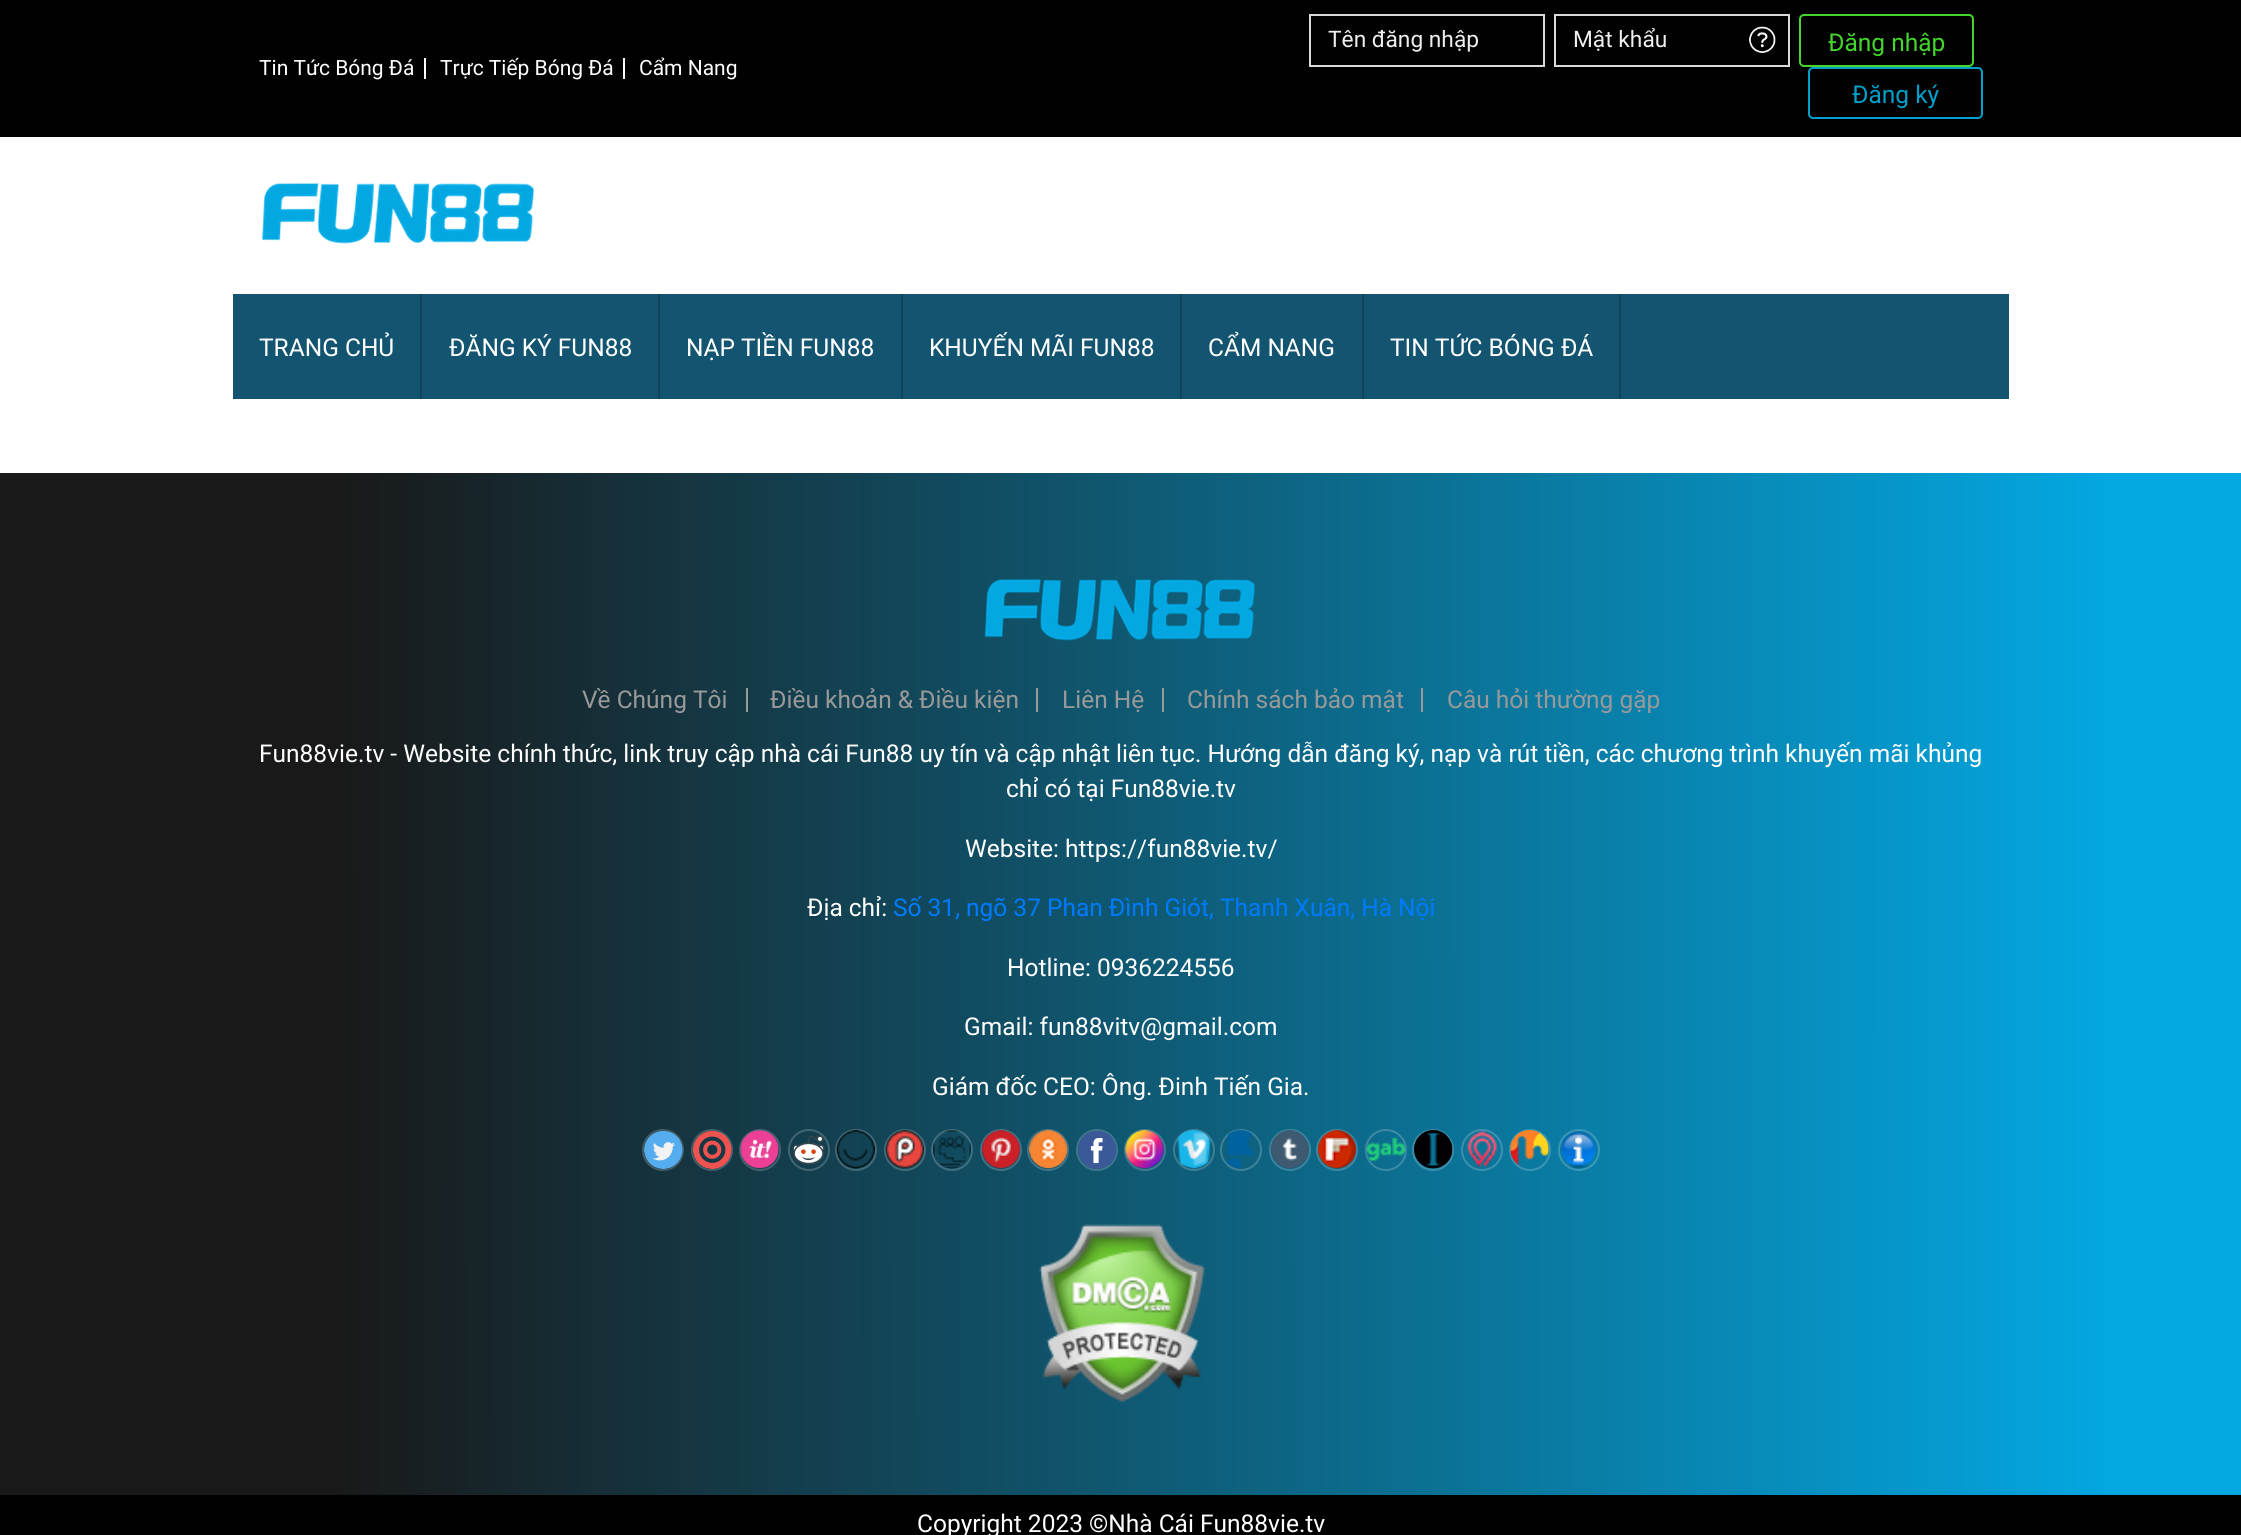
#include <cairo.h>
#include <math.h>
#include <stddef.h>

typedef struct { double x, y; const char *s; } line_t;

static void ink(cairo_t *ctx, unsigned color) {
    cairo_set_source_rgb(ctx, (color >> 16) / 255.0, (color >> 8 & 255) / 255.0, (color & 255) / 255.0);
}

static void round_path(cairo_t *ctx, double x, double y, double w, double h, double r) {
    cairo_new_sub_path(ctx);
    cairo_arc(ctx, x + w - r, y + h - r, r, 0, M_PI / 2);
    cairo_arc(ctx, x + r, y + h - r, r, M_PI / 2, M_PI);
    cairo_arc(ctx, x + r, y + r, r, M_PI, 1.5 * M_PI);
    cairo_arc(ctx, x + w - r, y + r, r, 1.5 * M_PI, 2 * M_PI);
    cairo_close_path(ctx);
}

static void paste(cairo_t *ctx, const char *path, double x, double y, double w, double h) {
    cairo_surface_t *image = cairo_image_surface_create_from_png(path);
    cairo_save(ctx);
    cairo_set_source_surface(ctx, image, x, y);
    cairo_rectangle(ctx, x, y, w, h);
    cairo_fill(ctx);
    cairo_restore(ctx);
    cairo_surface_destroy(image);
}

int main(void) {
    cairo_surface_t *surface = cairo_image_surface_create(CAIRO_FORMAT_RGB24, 2241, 1535);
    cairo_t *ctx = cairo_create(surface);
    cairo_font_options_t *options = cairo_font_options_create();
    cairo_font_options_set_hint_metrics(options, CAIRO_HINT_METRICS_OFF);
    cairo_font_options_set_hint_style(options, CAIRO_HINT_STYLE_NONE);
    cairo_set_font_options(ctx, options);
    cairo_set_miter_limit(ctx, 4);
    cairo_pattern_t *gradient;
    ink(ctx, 0xFFFFFF);
    cairo_paint(ctx);
    ink(ctx, 0x010101);
    cairo_rectangle(ctx, 0, 0, 2241, 137);
    cairo_fill(ctx);
    ink(ctx, 0xFFFFFF);
    cairo_rectangle(ctx, 424, 58, 2, 21);
    cairo_fill(ctx);
    cairo_select_font_face(ctx, "Roboto", CAIRO_FONT_SLANT_NORMAL, CAIRO_FONT_WEIGHT_NORMAL);
    cairo_set_font_size(ctx, 21);
    cairo_move_to(ctx, 259, 75);
    cairo_show_text(ctx, "Tin Tức Bóng Đá");
    cairo_rectangle(ctx, 623, 58, 2, 21);
    cairo_fill(ctx);
    cairo_move_to(ctx, 440, 75);
    cairo_show_text(ctx, "Trực Tiếp Bóng Đá");
    cairo_move_to(ctx, 639, 75);
    cairo_show_text(ctx, "Cẩm Nang");
    cairo_rectangle(ctx, 1310, 15, 234, 51);
    ink(ctx, 0xD9D9D9);
    cairo_stroke(ctx);
    cairo_set_font_size(ctx, 22.75);
    ink(ctx, 0xEEEEEE);
    cairo_move_to(ctx, 1328, 47);
    cairo_show_text(ctx, "Tên đăng nhập");
    paste(ctx, "media/1.png", 1749, 26, 27, 27);
    cairo_rectangle(ctx, 1555, 15, 234, 51);
    ink(ctx, 0xD9D9D9);
    cairo_stroke(ctx);
    ink(ctx, 0xEEEEEE);
    cairo_move_to(ctx, 1573, 47);
    cairo_show_text(ctx, "Mật khẩu");
    round_path(ctx, 1800, 15, 173, 51, 4);
    ink(ctx, 0x44D62D);
    cairo_stroke(ctx);
    cairo_set_font_size(ctx, 24.5);
    cairo_move_to(ctx, 1828, 51);
    cairo_show_text(ctx, "Đăng nhập");
    round_path(ctx, 1809, 68, 173, 50, 4);
    ink(ctx, 0x00A0CA);
    cairo_stroke(ctx);
    cairo_move_to(ctx, 1852, 103);
    cairo_show_text(ctx, "Đăng ký");
    paste(ctx, "media/2.png", 261, 183, 273, 61);
    ink(ctx, 0x135571);
    cairo_rectangle(ctx, 233, 294, 1776, 105);
    cairo_fill(ctx);
    ink(ctx, 0x0F445A);
    cairo_rectangle(ctx, 420, 294, 2, 105);
    cairo_fill(ctx);
    ink(ctx, 0xFFFFFF);
    cairo_move_to(ctx, 259, 356);
    cairo_show_text(ctx, "TRANG CHỦ");
    ink(ctx, 0x0F445A);
    cairo_rectangle(ctx, 658, 294, 2, 105);
    cairo_fill(ctx);
    ink(ctx, 0xFFFFFF);
    cairo_move_to(ctx, 449, 356);
    cairo_show_text(ctx, "ĐĂNG KÝ FUN88");
    ink(ctx, 0x0F445A);
    cairo_rectangle(ctx, 901, 294, 2, 105);
    cairo_fill(ctx);
    ink(ctx, 0xFFFFFF);
    cairo_move_to(ctx, 686, 356);
    cairo_show_text(ctx, "NẠP TIỀN FUN88");
    ink(ctx, 0x0F445A);
    cairo_rectangle(ctx, 1180, 294, 2, 105);
    cairo_fill(ctx);
    ink(ctx, 0xFFFFFF);
    cairo_move_to(ctx, 929, 356);
    cairo_show_text(ctx, "KHUYẾN MÃI FUN88");
    ink(ctx, 0x0F445A);
    cairo_rectangle(ctx, 1362, 294, 2, 105);
    cairo_fill(ctx);
    ink(ctx, 0xFFFFFF);
    cairo_move_to(ctx, 1208, 356);
    cairo_show_text(ctx, "CẨM NANG");
    ink(ctx, 0x0F445A);
    cairo_rectangle(ctx, 1619, 294, 2, 105);
    cairo_fill(ctx);
    ink(ctx, 0xFFFFFF);
    cairo_move_to(ctx, 1390, 356);
    cairo_show_text(ctx, "TIN TỨC BÓNG ĐÁ");
    gradient = cairo_pattern_create_linear(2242, 983, 0, 984);
    cairo_pattern_add_color_stop_rgba(gradient, 0.06, 0.012, 0.655, 0.882, 1);
    cairo_pattern_add_color_stop_rgba(gradient, 0.85, 0.098, 0.098, 0.098, 1);
    cairo_set_source(ctx, gradient);
    cairo_pattern_destroy(gradient);
    cairo_rectangle(ctx, 0, 473, 2241, 1022);
    cairo_fill(ctx);
    paste(ctx, "media/3.png", 984, 579, 271, 62);
    ink(ctx, 0x999999);
    cairo_rectangle(ctx, 746, 688, 2, 24);
    cairo_fill(ctx);
    cairo_move_to(ctx, 582, 708);
    cairo_show_text(ctx, "Về Chúng Tôi");
    cairo_rectangle(ctx, 1036, 688, 2, 24);
    cairo_fill(ctx);
    cairo_move_to(ctx, 770, 708);
    cairo_show_text(ctx, "Điều khoản & Điều kiện");
    cairo_rectangle(ctx, 1162, 688, 2, 24);
    cairo_fill(ctx);
    cairo_move_to(ctx, 1062, 708);
    cairo_show_text(ctx, "Liên Hệ");
    cairo_rectangle(ctx, 1421, 688, 2, 24);
    cairo_fill(ctx);
    cairo_move_to(ctx, 1187, 708);
    cairo_show_text(ctx, "Chính sách bảo mật");
    cairo_move_to(ctx, 1447, 708);
    cairo_show_text(ctx, "Câu hỏi thường gặp");
    ink(ctx, 0xFFFFFF);
    {
        static const line_t items[] = {
            {259, 762, "Fun88vie.tv - Website chính thức, link truy cập nhà cái Fun88 uy tín và cập nhật liên tục. Hướng dẫn đăng ký, nạp và rút tiền, các chương trình khuyến mãi khủng"},
            {1006, 797, "chỉ có tại Fun88vie.tv"},
            {965, 857, "Website: https://fun88vie.tv/"},
            {807, 916, "Địa chỉ:"},
        };
        for (size_t i = 0; i < sizeof items / sizeof *items; i++) {
            cairo_move_to(ctx, items[i].x, items[i].y);
            cairo_show_text(ctx, items[i].s);
        }
    }
    ink(ctx, 0x007BFF);
    cairo_move_to(ctx, 893, 916);
    cairo_show_text(ctx, "Số 31, ngõ 37 Phan Đình Giót, Thanh Xuân, Hà Nội");
    ink(ctx, 0xFFFFFF);
    {
        static const line_t items[] = {
            {1007, 976, "Hotline: 0936224556"},
            {964, 1035, "Gmail: fun88vitv@gmail.com"},
            {932, 1095, "Giám đốc CEO: Ông. Đinh Tiến Gia."},
        };
        for (size_t i = 0; i < sizeof items / sizeof *items; i++) {
            cairo_move_to(ctx, items[i].x, items[i].y);
            cairo_show_text(ctx, items[i].s);
        }
    }
    cairo_new_path(ctx);
    cairo_arc(ctx, 663, 1150, 20, 0, 2 * M_PI);
    cairo_set_source_rgba(ctx, 1, 1, 1, 0.2);
    cairo_stroke(ctx);
    cairo_arc(ctx, 712, 1150, 20, 0, 2 * M_PI);
    cairo_stroke(ctx);
    cairo_arc(ctx, 760, 1150, 20, 0, 2 * M_PI);
    cairo_stroke(ctx);
    cairo_arc(ctx, 809, 1150, 20, 0, 2 * M_PI);
    cairo_stroke(ctx);
    cairo_arc(ctx, 856, 1150, 20, 0, 2 * M_PI);
    cairo_stroke(ctx);
    cairo_arc(ctx, 905, 1150, 20, 0, 2 * M_PI);
    cairo_stroke(ctx);
    cairo_arc(ctx, 952, 1150, 20, 0, 2 * M_PI);
    cairo_stroke(ctx);
    cairo_arc(ctx, 1001, 1150, 20, 0, 2 * M_PI);
    cairo_stroke(ctx);
    cairo_arc(ctx, 1048, 1150, 20, 0, 2 * M_PI);
    cairo_stroke(ctx);
    cairo_arc(ctx, 1097, 1150, 20, 0, 2 * M_PI);
    cairo_stroke(ctx);
    cairo_arc(ctx, 1145, 1150, 20, 0, 2 * M_PI);
    cairo_stroke(ctx);
    cairo_arc(ctx, 1194, 1150, 20, 0, 2 * M_PI);
    cairo_stroke(ctx);
    cairo_arc(ctx, 1241, 1150, 20, 0, 2 * M_PI);
    cairo_stroke(ctx);
    cairo_arc(ctx, 1290, 1150, 20, 0, 2 * M_PI);
    cairo_stroke(ctx);
    cairo_arc(ctx, 1337, 1150, 20, 0, 2 * M_PI);
    cairo_stroke(ctx);
    cairo_arc(ctx, 1386, 1150, 20, 0, 2 * M_PI);
    cairo_stroke(ctx);
    cairo_arc(ctx, 1433, 1150, 20, 0, 2 * M_PI);
    cairo_stroke(ctx);
    cairo_arc(ctx, 1482, 1150, 20, 0, 2 * M_PI);
    cairo_stroke(ctx);
    cairo_arc(ctx, 1530, 1150, 20, 0, 2 * M_PI);
    cairo_stroke(ctx);
    cairo_arc(ctx, 1579, 1150, 20, 0, 2 * M_PI);
    cairo_stroke(ctx);
    paste(ctx, "media/4.png", 644, 1131, 39, 38);
    paste(ctx, "media/5.png", 693, 1131, 39, 38);
    paste(ctx, "media/6.png", 740, 1130, 39, 39);
    paste(ctx, "media/7.png", 792, 1135, 33, 30);
    paste(ctx, "media/8.png", 836, 1130, 39, 39);
    paste(ctx, "media/9.png", 885, 1130, 39, 39);
    paste(ctx, "media/10.png", 933, 1130, 39, 39);
    paste(ctx, "media/11.png", 981, 1130, 40, 39);
    paste(ctx, "media/12.png", 1029, 1130, 39, 39);
    paste(ctx, "media/13.png", 1078, 1131, 39, 38);
    paste(ctx, "media/14.png", 1125, 1130, 39, 39);
    paste(ctx, "media/15.png", 1177, 1130, 34, 39);
    paste(ctx, "media/16.png", 1226, 1130, 28, 38);
    paste(ctx, "media/17.png", 1270, 1130, 39, 39);
    paste(ctx, "media/18.png", 1317, 1130, 40, 39);
    paste(ctx, "media/19.png", 1366, 1137, 40, 24);
    paste(ctx, "media/20.png", 1414, 1130, 39, 39);
    paste(ctx, "media/21.png", 1467, 1131, 30, 37);
    paste(ctx, "media/22.png", 1510, 1130, 39, 35);
    paste(ctx, "media/23.png", 1560, 1131, 37, 38);
    paste(ctx, "media/24.png", 1039, 1224, 166, 178);
    ink(ctx, 0x010101);
    cairo_rectangle(ctx, 0, 1495, 2241, 40);
    cairo_fill(ctx);
    ink(ctx, 0xFFFFFF);
    cairo_move_to(ctx, 917, 1532);
    cairo_show_text(ctx, "Copyright 2023 ©Nhà Cái Fun88vie.tv");
    cairo_surface_write_to_png(surface, "image.png");
    cairo_font_options_destroy(options);
    cairo_destroy(ctx);
    cairo_surface_destroy(surface);
    return 0;
}
